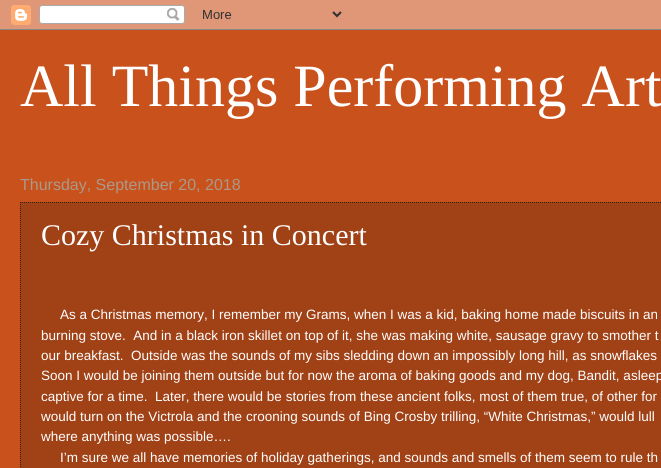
#include <cairo.h>
#include <math.h>
#include <stddef.h>

typedef struct { double x, y; const char *s; } line_t;

static void ink(cairo_t *ctx, unsigned color) {
    cairo_set_source_rgb(ctx, (color >> 16) / 255.0, (color >> 8 & 255) / 255.0, (color & 255) / 255.0);
}

static void paste(cairo_t *ctx, const char *path, double x, double y, double w, double h) {
    cairo_surface_t *image = cairo_image_surface_create_from_png(path);
    cairo_save(ctx);
    cairo_set_source_surface(ctx, image, x, y);
    cairo_rectangle(ctx, x, y, w, h);
    cairo_fill(ctx);
    cairo_restore(ctx);
    cairo_surface_destroy(image);
}

int main(void) {
    cairo_surface_t *surface = cairo_image_surface_create(CAIRO_FORMAT_RGB24, 661, 468);
    cairo_t *ctx = cairo_create(surface);
    cairo_font_options_t *options = cairo_font_options_create();
    cairo_font_options_set_hint_metrics(options, CAIRO_HINT_METRICS_OFF);
    cairo_font_options_set_hint_style(options, CAIRO_HINT_STYLE_NONE);
    cairo_set_font_options(ctx, options);
    cairo_set_miter_limit(ctx, 4);
    ink(ctx, 0xC9511C);
    cairo_paint(ctx);
    paste(ctx, "media/1.png", 0, 0, 661, 30);
    cairo_select_font_face(ctx, "Liberation Serif", CAIRO_FONT_SLANT_NORMAL, CAIRO_FONT_WEIGHT_NORMAL);
    cairo_set_font_size(ctx, 60);
    ink(ctx, 0xFFFFFF);
    cairo_move_to(ctx, 20, 106);
    cairo_show_text(ctx, "All Things Performing Art");
    cairo_select_font_face(ctx, "Liberation Sans", CAIRO_FONT_SLANT_NORMAL, CAIRO_FONT_WEIGHT_NORMAL);
    cairo_set_font_size(ctx, 16);
    ink(ctx, 0xAA9988);
    cairo_move_to(ctx, 20, 190);
    cairo_show_text(ctx, "Thursday, September 20, 2018");
    ink(ctx, 0xA04116);
    cairo_rectangle(ctx, 20, 202, 641, 266);
    cairo_fill(ctx);
    cairo_new_path(ctx);
    cairo_move_to(ctx, 20, 202.5);
    cairo_line_to(ctx, 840, 202.5);
    ink(ctx, 0x332211);
    cairo_set_line_width(ctx, 1);
    cairo_set_dash(ctx, (double[]){1, 1}, 2, 0);
    cairo_stroke(ctx);
    cairo_new_path(ctx);
    cairo_move_to(ctx, 20.5, 202);
    cairo_line_to(ctx, 20.5, 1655);
    cairo_stroke(ctx);
    cairo_select_font_face(ctx, "Liberation Serif", CAIRO_FONT_SLANT_NORMAL, CAIRO_FONT_WEIGHT_NORMAL);
    cairo_set_font_size(ctx, 30);
    ink(ctx, 0xFFFFFF);
    cairo_move_to(ctx, 41, 245);
    cairo_show_text(ctx, "Cozy Christmas in Concert");
    cairo_select_font_face(ctx, "Liberation Sans", CAIRO_FONT_SLANT_NORMAL, CAIRO_FONT_WEIGHT_NORMAL);
    cairo_set_font_size(ctx, 13.5);
    {
        static const line_t items[] = {
            {60, 319, "As a Christmas memory, I remember my Grams, when I was a kid, baking home made biscuits in an"},
            {41, 340, "burning stove.  And in a black iron skillet on top of it, she was making white, sausage gravy to smother t"},
            {41, 360, "our breakfast.  Outside was the sounds of my sibs sledding down an impossibly long hill, as snowflakes"},
            {41, 380, "Soon I would be joining them outside but for now the aroma of baking goods and my dog, Bandit, asleep"},
            {41, 401, "captive for a time.  Later, there would be stories from these ancient folks, most of them true, of other for"},
            {41, 421, "would turn on the Victrola and the crooning sounds of Bing Crosby trilling, “White Christmas,” would lull"},
            {41, 441, "where anything was possible…."},
            {60, 462, "I’m sure we all have memories of holiday gatherings, and sounds and smells of them seem to rule th"},
        };
        for (size_t i = 0; i < sizeof items / sizeof *items; i++) {
            cairo_move_to(ctx, items[i].x, items[i].y);
            cairo_show_text(ctx, items[i].s);
        }
    }
    cairo_surface_write_to_png(surface, "image.png");
    cairo_font_options_destroy(options);
    cairo_destroy(ctx);
    cairo_surface_destroy(surface);
    return 0;
}
